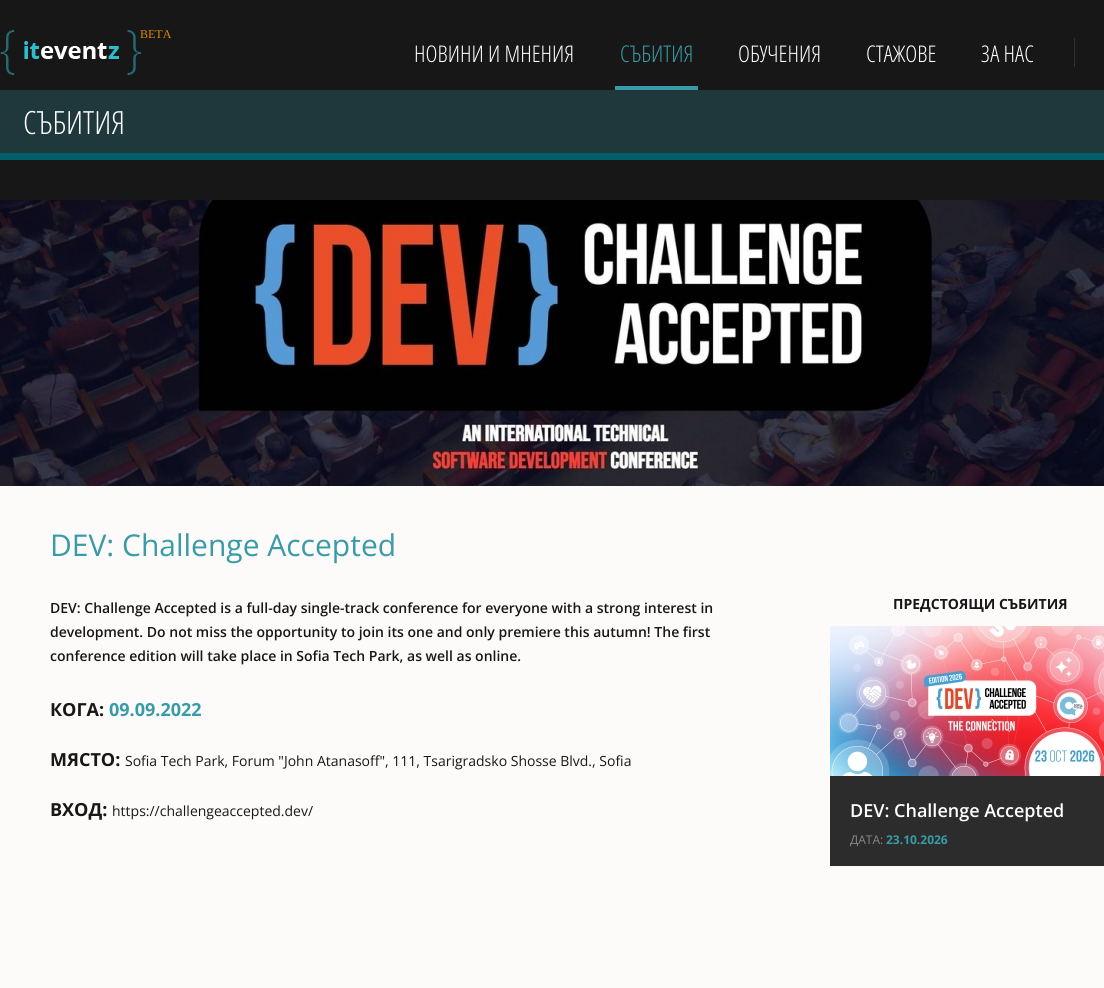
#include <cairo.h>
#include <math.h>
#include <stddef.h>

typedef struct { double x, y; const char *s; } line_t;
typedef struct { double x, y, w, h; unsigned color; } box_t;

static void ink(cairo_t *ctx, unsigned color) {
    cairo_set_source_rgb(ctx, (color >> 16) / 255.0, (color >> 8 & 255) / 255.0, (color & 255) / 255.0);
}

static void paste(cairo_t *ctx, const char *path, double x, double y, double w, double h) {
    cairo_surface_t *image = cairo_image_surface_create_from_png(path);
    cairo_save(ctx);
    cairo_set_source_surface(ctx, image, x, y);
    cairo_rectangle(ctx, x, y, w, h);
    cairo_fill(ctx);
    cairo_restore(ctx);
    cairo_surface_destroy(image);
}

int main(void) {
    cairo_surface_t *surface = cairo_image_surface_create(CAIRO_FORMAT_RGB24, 1104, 988);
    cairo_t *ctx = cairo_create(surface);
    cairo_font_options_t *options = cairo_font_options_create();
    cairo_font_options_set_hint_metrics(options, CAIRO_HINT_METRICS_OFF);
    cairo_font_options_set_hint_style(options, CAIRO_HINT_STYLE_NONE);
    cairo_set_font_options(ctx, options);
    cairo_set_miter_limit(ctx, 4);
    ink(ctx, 0x171717);
    cairo_paint(ctx);
    paste(ctx, "media/1.png", 0, 30, 141, 45);
    cairo_select_font_face(ctx, "Liberation Serif", CAIRO_FONT_SLANT_NORMAL, CAIRO_FONT_WEIGHT_NORMAL);
    cairo_set_font_size(ctx, 12);
    ink(ctx, 0xDC8803);
    cairo_move_to(ctx, 140, 38);
    cairo_show_text(ctx, "BETA");
    cairo_select_font_face(ctx, "Open Sans Condensed Light", CAIRO_FONT_SLANT_NORMAL, CAIRO_FONT_WEIGHT_NORMAL);
    cairo_set_font_size(ctx, 23);
    ink(ctx, 0xFFFFFF);
    cairo_move_to(ctx, 414, 62);
    cairo_show_text(ctx, "НОВИНИ И МНЕНИЯ");
    ink(ctx, 0x389BA7);
    cairo_rectangle(ctx, 615, 86, 83, 4);
    cairo_fill(ctx);
    cairo_move_to(ctx, 620, 62);
    cairo_show_text(ctx, "СЪБИТИЯ");
    ink(ctx, 0xFFFFFF);
    {
        static const line_t items[] = {
            {738, 62, "ОБУЧЕНИЯ"},
            {866, 62, "СТАЖОВЕ"},
            {981, 62, "ЗА НАС"},
        };
        for (size_t i = 0; i < sizeof items / sizeof *items; i++) {
            cairo_move_to(ctx, items[i].x, items[i].y);
            cairo_show_text(ctx, items[i].s);
        }
    }
    {
        static const box_t items[] = {
            {1074, 38, 1, 29, 0x323232},
            {0, 90, 1104, 63, 0x1F383B},
            {0, 153, 1104, 7, 0x005F6B},
        };
        for (size_t i = 0; i < sizeof items / sizeof *items; i++) {
            ink(ctx, items[i].color);
            cairo_rectangle(ctx, items[i].x, items[i].y, items[i].w, items[i].h);
            cairo_fill(ctx);
        }
    }
    cairo_set_font_size(ctx, 32);
    ink(ctx, 0xFFFFFF);
    cairo_move_to(ctx, 23, 134);
    cairo_show_text(ctx, "СЪБИТИЯ");
    ink(ctx, 0xFDFBFA);
    cairo_rectangle(ctx, 0, 486, 1104, 502);
    cairo_fill(ctx);
    paste(ctx, "media/2.png", 0, 200, 1104, 286);
    cairo_select_font_face(ctx, "Open Sans", CAIRO_FONT_SLANT_NORMAL, CAIRO_FONT_WEIGHT_NORMAL);
    cairo_set_font_size(ctx, 30);
    ink(ctx, 0x389BA7);
    cairo_move_to(ctx, 50, 556);
    cairo_show_text(ctx, "DEV: Challenge Accepted");
    cairo_select_font_face(ctx, "Open Sans SemiBold", CAIRO_FONT_SLANT_NORMAL, CAIRO_FONT_WEIGHT_NORMAL);
    cairo_set_font_size(ctx, 14);
    ink(ctx, 0x171717);
    {
        static const line_t items[] = {
            {50, 613, "DEV: Challenge Accepted is a full-day single-track conference for everyone with a strong interest in"},
            {50, 637, "development. Do not miss the opportunity to join its one and only premiere this autumn! The first"},
            {50, 661, "conference edition will take place in Sofia Tech Park, as well as online."},
        };
        for (size_t i = 0; i < sizeof items / sizeof *items; i++) {
            cairo_move_to(ctx, items[i].x, items[i].y);
            cairo_show_text(ctx, items[i].s);
        }
    }
    cairo_select_font_face(ctx, "Open Sans", CAIRO_FONT_SLANT_NORMAL, CAIRO_FONT_WEIGHT_BOLD);
    cairo_set_font_size(ctx, 18);
    cairo_move_to(ctx, 50, 716);
    cairo_show_text(ctx, "КОГА:");
    ink(ctx, 0x389BA7);
    cairo_move_to(ctx, 109, 716);
    cairo_show_text(ctx, "09.09.2022");
    ink(ctx, 0x171717);
    cairo_move_to(ctx, 50, 766);
    cairo_show_text(ctx, "МЯСТО:");
    cairo_select_font_face(ctx, "Open Sans", CAIRO_FONT_SLANT_NORMAL, CAIRO_FONT_WEIGHT_NORMAL);
    cairo_set_font_size(ctx, 14);
    cairo_move_to(ctx, 125, 766);
    cairo_show_text(ctx, "Sofia Tech Park, Forum \"John Atanasoff\", 111, Tsarigradsko Shosse Blvd., Sofia");
    cairo_select_font_face(ctx, "Open Sans", CAIRO_FONT_SLANT_NORMAL, CAIRO_FONT_WEIGHT_BOLD);
    cairo_set_font_size(ctx, 18);
    cairo_move_to(ctx, 50, 816);
    cairo_show_text(ctx, "ВХОД:");
    cairo_select_font_face(ctx, "Open Sans", CAIRO_FONT_SLANT_NORMAL, CAIRO_FONT_WEIGHT_NORMAL);
    cairo_set_font_size(ctx, 14);
    cairo_move_to(ctx, 112, 816);
    cairo_show_text(ctx, "https://challengeaccepted.dev/");
    cairo_select_font_face(ctx, "Open Sans", CAIRO_FONT_SLANT_NORMAL, CAIRO_FONT_WEIGHT_BOLD);
    cairo_move_to(ctx, 893, 609);
    cairo_show_text(ctx, "ПРЕДСТОЯЩИ СЪБИТИЯ");
    ink(ctx, 0x2C2C2C);
    cairo_rectangle(ctx, 830, 776, 274, 90);
    cairo_fill(ctx);
    paste(ctx, "media/3.png", 830, 626, 274, 150);
    cairo_select_font_face(ctx, "Open Sans SemiBold", CAIRO_FONT_SLANT_NORMAL, CAIRO_FONT_WEIGHT_NORMAL);
    cairo_set_font_size(ctx, 18);
    ink(ctx, 0xFFFFFF);
    cairo_move_to(ctx, 850, 817);
    cairo_show_text(ctx, "DEV: Challenge Accepted");
    cairo_select_font_face(ctx, "Open Sans", CAIRO_FONT_SLANT_NORMAL, CAIRO_FONT_WEIGHT_NORMAL);
    cairo_set_font_size(ctx, 12);
    ink(ctx, 0x888888);
    cairo_move_to(ctx, 850, 844);
    cairo_show_text(ctx, "ДАТА:");
    cairo_select_font_face(ctx, "Open Sans", CAIRO_FONT_SLANT_NORMAL, CAIRO_FONT_WEIGHT_BOLD);
    ink(ctx, 0x389BA7);
    cairo_move_to(ctx, 886, 844);
    cairo_show_text(ctx, "23.10.2026");
    cairo_surface_write_to_png(surface, "image.png");
    cairo_font_options_destroy(options);
    cairo_destroy(ctx);
    cairo_surface_destroy(surface);
    return 0;
}
